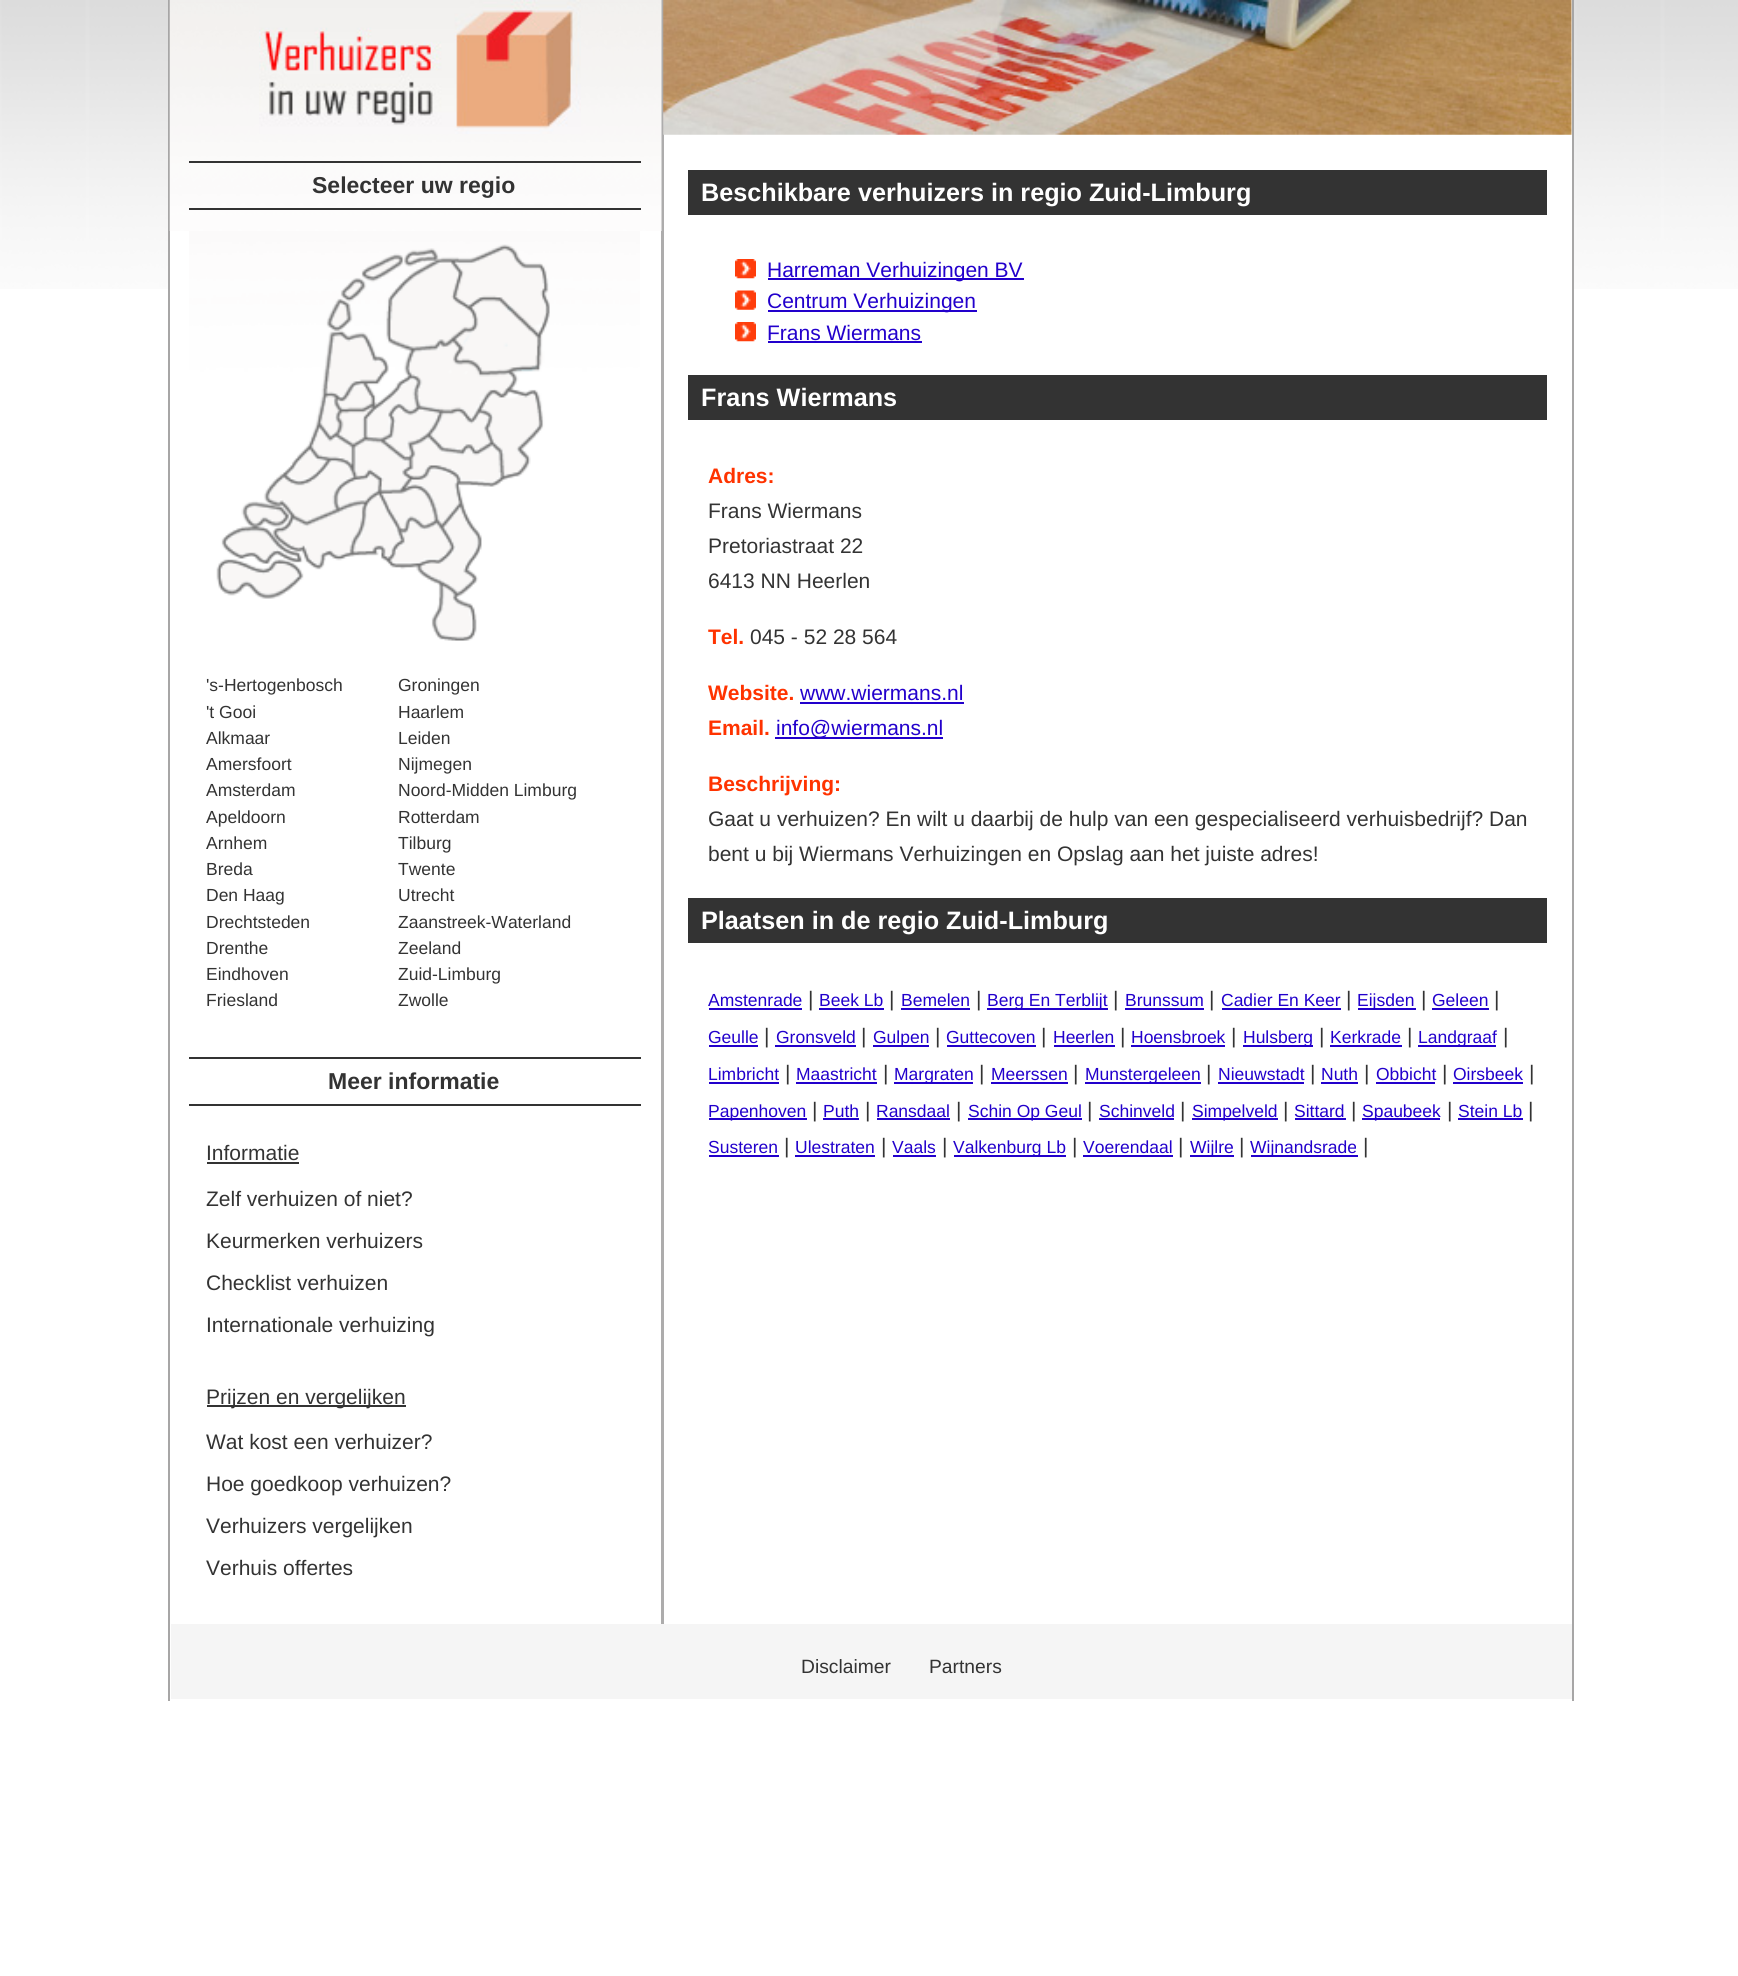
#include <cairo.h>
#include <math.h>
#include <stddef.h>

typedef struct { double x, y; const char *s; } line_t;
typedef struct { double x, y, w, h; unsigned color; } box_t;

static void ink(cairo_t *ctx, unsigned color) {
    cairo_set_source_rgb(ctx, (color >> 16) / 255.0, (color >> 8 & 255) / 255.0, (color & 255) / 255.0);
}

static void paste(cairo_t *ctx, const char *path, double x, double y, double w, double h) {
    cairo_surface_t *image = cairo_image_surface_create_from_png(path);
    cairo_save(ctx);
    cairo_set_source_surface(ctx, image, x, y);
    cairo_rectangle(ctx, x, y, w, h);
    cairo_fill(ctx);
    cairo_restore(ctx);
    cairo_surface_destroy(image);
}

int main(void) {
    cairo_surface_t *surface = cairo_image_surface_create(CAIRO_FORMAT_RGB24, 1738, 1976);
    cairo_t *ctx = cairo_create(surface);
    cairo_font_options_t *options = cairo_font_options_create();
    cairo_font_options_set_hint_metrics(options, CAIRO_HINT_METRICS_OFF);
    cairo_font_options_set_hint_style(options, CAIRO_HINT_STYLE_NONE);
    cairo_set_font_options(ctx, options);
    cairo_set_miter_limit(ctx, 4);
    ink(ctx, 0xFFFFFF);
    cairo_paint(ctx);
    paste(ctx, "media/1.png", 0, 0, 1738, 289);
    {
        static const box_t items[] = {
            {170, 0, 1402, 289, 0xFFFFFF},
            {661, 0, 3, 1624, 0xADACAC},
            {168, 0, 2, 1701, 0xA7A6A6},
        };
        for (size_t i = 0; i < sizeof items / sizeof *items; i++) {
            ink(ctx, items[i].color);
            cairo_rectangle(ctx, items[i].x, items[i].y, items[i].w, items[i].h);
            cairo_fill(ctx);
        }
    }
    paste(ctx, "media/2.png", 169, 0, 493, 231);
    paste(ctx, "media/3.png", 259, 0, 322, 134);
    ink(ctx, 0x333333);
    cairo_rectangle(ctx, 189, 161, 452, 2);
    cairo_fill(ctx);
    cairo_rectangle(ctx, 189, 208, 452, 2);
    cairo_fill(ctx);
    cairo_select_font_face(ctx, "Liberation Sans", CAIRO_FONT_SLANT_NORMAL, CAIRO_FONT_WEIGHT_BOLD);
    cairo_set_font_size(ctx, 23);
    cairo_move_to(ctx, 312, 193);
    cairo_show_text(ctx, "Selecteer uw regio");
    paste(ctx, "media/4.png", 189, 231, 451, 410);
    cairo_select_font_face(ctx, "Liberation Sans", CAIRO_FONT_SLANT_NORMAL, CAIRO_FONT_WEIGHT_NORMAL);
    cairo_set_font_size(ctx, 17.5);
    {
        static const line_t items[] = {
            {206, 691, "'s-Hertogenbosch"},
            {398, 691, "Groningen"},
            {206, 718, "'t Gooi"},
            {398, 718, "Haarlem"},
            {206, 744, "Alkmaar"},
            {398, 744, "Leiden"},
            {206, 770, "Amersfoort"},
            {398, 770, "Nijmegen"},
            {206, 796, "Amsterdam"},
            {398, 796, "Noord-Midden Limburg"},
            {206, 823, "Apeldoorn"},
            {398, 823, "Rotterdam"},
            {206, 849, "Arnhem"},
            {398, 849, "Tilburg"},
            {206, 875, "Breda"},
            {398, 875, "Twente"},
            {206, 901, "Den Haag"},
            {398, 901, "Utrecht"},
            {206, 928, "Drechtsteden"},
            {398, 928, "Zaanstreek-Waterland"},
            {206, 954, "Drenthe"},
            {398, 954, "Zeeland"},
            {206, 980, "Eindhoven"},
            {398, 980, "Zuid-Limburg"},
            {206, 1006, "Friesland"},
            {398, 1006, "Zwolle"},
        };
        for (size_t i = 0; i < sizeof items / sizeof *items; i++) {
            cairo_move_to(ctx, items[i].x, items[i].y);
            cairo_show_text(ctx, items[i].s);
        }
    }
    cairo_rectangle(ctx, 189, 1057, 452, 2);
    cairo_fill(ctx);
    cairo_rectangle(ctx, 189, 1104, 452, 2);
    cairo_fill(ctx);
    cairo_select_font_face(ctx, "Liberation Sans", CAIRO_FONT_SLANT_NORMAL, CAIRO_FONT_WEIGHT_BOLD);
    cairo_set_font_size(ctx, 23);
    cairo_move_to(ctx, 328, 1089);
    cairo_show_text(ctx, "Meer informatie");
    cairo_select_font_face(ctx, "Liberation Sans", CAIRO_FONT_SLANT_NORMAL, CAIRO_FONT_WEIGHT_NORMAL);
    cairo_set_font_size(ctx, 21);
    cairo_move_to(ctx, 206, 1160);
    cairo_show_text(ctx, "Informatie");
    cairo_rectangle(ctx, 207, 1162, 92, 2);
    cairo_fill(ctx);
    {
        static const line_t items[] = {
            {206, 1206, "Zelf verhuizen of niet?"},
            {206, 1248, "Keurmerken verhuizers"},
            {206, 1290, "Checklist verhuizen"},
            {206, 1332, "Internationale verhuizing"},
        };
        for (size_t i = 0; i < sizeof items / sizeof *items; i++) {
            cairo_move_to(ctx, items[i].x, items[i].y);
            cairo_show_text(ctx, items[i].s);
        }
    }
    cairo_rectangle(ctx, 207, 1405, 199, 2);
    cairo_fill(ctx);
    {
        static const line_t items[] = {
            {206, 1404, "Prijzen en vergelijken"},
            {206, 1449, "Wat kost een verhuizer?"},
            {206, 1491, "Hoe goedkoop verhuizen?"},
            {206, 1533, "Verhuizers vergelijken"},
            {206, 1575, "Verhuis offertes"},
        };
        for (size_t i = 0; i < sizeof items / sizeof *items; i++) {
            cairo_move_to(ctx, items[i].x, items[i].y);
            cairo_show_text(ctx, items[i].s);
        }
    }
    paste(ctx, "media/5.png", 663, 0, 909, 135);
    cairo_rectangle(ctx, 688, 170, 859, 45);
    cairo_fill(ctx);
    cairo_select_font_face(ctx, "Liberation Sans", CAIRO_FONT_SLANT_NORMAL, CAIRO_FONT_WEIGHT_BOLD);
    cairo_set_font_size(ctx, 25.2);
    ink(ctx, 0xFFFFFF);
    cairo_move_to(ctx, 701, 201);
    cairo_show_text(ctx, "Beschikbare verhuizers in regio Zuid-Limburg");
    paste(ctx, "media/6.png", 735, 259, 21, 20);
    ink(ctx, 0x2200CC);
    cairo_rectangle(ctx, 768, 278, 256, 2);
    cairo_fill(ctx);
    cairo_select_font_face(ctx, "Liberation Sans", CAIRO_FONT_SLANT_NORMAL, CAIRO_FONT_WEIGHT_NORMAL);
    cairo_set_font_size(ctx, 21);
    cairo_move_to(ctx, 767, 277);
    cairo_show_text(ctx, "Harreman Verhuizingen BV");
    paste(ctx, "media/7.png", 735, 290, 21, 20);
    cairo_rectangle(ctx, 768, 310, 209, 2);
    cairo_fill(ctx);
    cairo_move_to(ctx, 767, 308);
    cairo_show_text(ctx, "Centrum Verhuizingen");
    paste(ctx, "media/6.png", 735, 322, 21, 20);
    cairo_move_to(ctx, 767, 340);
    cairo_show_text(ctx, "Frans Wiermans");
    cairo_rectangle(ctx, 768, 341, 154, 2);
    cairo_fill(ctx);
    ink(ctx, 0x333333);
    cairo_rectangle(ctx, 688, 375, 859, 45);
    cairo_fill(ctx);
    cairo_select_font_face(ctx, "Liberation Sans", CAIRO_FONT_SLANT_NORMAL, CAIRO_FONT_WEIGHT_BOLD);
    cairo_set_font_size(ctx, 25.2);
    ink(ctx, 0xFFFFFF);
    cairo_move_to(ctx, 701, 406);
    cairo_show_text(ctx, "Frans Wiermans");
    cairo_set_font_size(ctx, 21);
    ink(ctx, 0xFF3300);
    cairo_move_to(ctx, 708, 483);
    cairo_show_text(ctx, "Adres:");
    cairo_select_font_face(ctx, "Liberation Sans", CAIRO_FONT_SLANT_NORMAL, CAIRO_FONT_WEIGHT_NORMAL);
    ink(ctx, 0x333333);
    {
        static const line_t items[] = {
            {708, 518, "Frans Wiermans"},
            {708, 553, "Pretoriastraat 22"},
            {708, 588, "6413 NN Heerlen"},
        };
        for (size_t i = 0; i < sizeof items / sizeof *items; i++) {
            cairo_move_to(ctx, items[i].x, items[i].y);
            cairo_show_text(ctx, items[i].s);
        }
    }
    cairo_select_font_face(ctx, "Liberation Sans", CAIRO_FONT_SLANT_NORMAL, CAIRO_FONT_WEIGHT_BOLD);
    ink(ctx, 0xFF3300);
    cairo_move_to(ctx, 708, 644);
    cairo_show_text(ctx, "Tel.");
    cairo_select_font_face(ctx, "Liberation Sans", CAIRO_FONT_SLANT_NORMAL, CAIRO_FONT_WEIGHT_NORMAL);
    ink(ctx, 0x333333);
    cairo_move_to(ctx, 750, 644);
    cairo_show_text(ctx, "045 - 52 28 564");
    cairo_select_font_face(ctx, "Liberation Sans", CAIRO_FONT_SLANT_NORMAL, CAIRO_FONT_WEIGHT_BOLD);
    ink(ctx, 0xFF3300);
    cairo_move_to(ctx, 708, 700);
    cairo_show_text(ctx, "Website.");
    cairo_select_font_face(ctx, "Liberation Sans", CAIRO_FONT_SLANT_NORMAL, CAIRO_FONT_WEIGHT_NORMAL);
    ink(ctx, 0x2200CC);
    cairo_move_to(ctx, 800, 700);
    cairo_show_text(ctx, "www.wiermans.nl");
    cairo_rectangle(ctx, 800, 702, 164, 2);
    cairo_fill(ctx);
    cairo_select_font_face(ctx, "Liberation Sans", CAIRO_FONT_SLANT_NORMAL, CAIRO_FONT_WEIGHT_BOLD);
    ink(ctx, 0xFF3300);
    cairo_move_to(ctx, 708, 735);
    cairo_show_text(ctx, "Email.");
    ink(ctx, 0x2200CC);
    cairo_rectangle(ctx, 775, 737, 168, 2);
    cairo_fill(ctx);
    cairo_select_font_face(ctx, "Liberation Sans", CAIRO_FONT_SLANT_NORMAL, CAIRO_FONT_WEIGHT_NORMAL);
    cairo_move_to(ctx, 776, 735);
    cairo_show_text(ctx, "info@wiermans.nl");
    cairo_select_font_face(ctx, "Liberation Sans", CAIRO_FONT_SLANT_NORMAL, CAIRO_FONT_WEIGHT_BOLD);
    ink(ctx, 0xFF3300);
    cairo_move_to(ctx, 708, 791);
    cairo_show_text(ctx, "Beschrijving:");
    cairo_select_font_face(ctx, "Liberation Sans", CAIRO_FONT_SLANT_NORMAL, CAIRO_FONT_WEIGHT_NORMAL);
    ink(ctx, 0x333333);
    cairo_move_to(ctx, 708, 826);
    cairo_show_text(ctx, "Gaat u verhuizen? En wilt u daarbij de hulp van een gespecialiseerd verhuisbedrijf? Dan");
    cairo_move_to(ctx, 708, 861);
    cairo_show_text(ctx, "bent u bij Wiermans Verhuizingen en Opslag aan het juiste adres!");
    cairo_rectangle(ctx, 688, 898, 859, 45);
    cairo_fill(ctx);
    cairo_select_font_face(ctx, "Liberation Sans", CAIRO_FONT_SLANT_NORMAL, CAIRO_FONT_WEIGHT_BOLD);
    cairo_set_font_size(ctx, 25.2);
    ink(ctx, 0xFFFFFF);
    cairo_move_to(ctx, 701, 929);
    cairo_show_text(ctx, "Plaatsen in de regio Zuid-Limburg");
    cairo_select_font_face(ctx, "Liberation Sans", CAIRO_FONT_SLANT_NORMAL, CAIRO_FONT_WEIGHT_NORMAL);
    cairo_set_font_size(ctx, 17.5);
    ink(ctx, 0x2200CC);
    cairo_move_to(ctx, 708, 1006);
    cairo_show_text(ctx, "Amstenrade");
    cairo_rectangle(ctx, 709, 1008, 93, 2);
    cairo_fill(ctx);
    cairo_set_font_size(ctx, 21);
    ink(ctx, 0x333333);
    cairo_move_to(ctx, 808, 1006);
    cairo_show_text(ctx, "|");
    cairo_set_font_size(ctx, 17.5);
    ink(ctx, 0x2200CC);
    cairo_move_to(ctx, 819, 1006);
    cairo_show_text(ctx, "Beek Lb");
    cairo_rectangle(ctx, 819, 1008, 65, 2);
    cairo_fill(ctx);
    cairo_set_font_size(ctx, 21);
    ink(ctx, 0x333333);
    cairo_move_to(ctx, 889, 1006);
    cairo_show_text(ctx, "|");
    cairo_set_font_size(ctx, 17.5);
    ink(ctx, 0x2200CC);
    cairo_move_to(ctx, 901, 1006);
    cairo_show_text(ctx, "Bemelen");
    cairo_rectangle(ctx, 901, 1008, 69, 2);
    cairo_fill(ctx);
    cairo_set_font_size(ctx, 21);
    ink(ctx, 0x333333);
    cairo_move_to(ctx, 976, 1006);
    cairo_show_text(ctx, "|");
    ink(ctx, 0x2200CC);
    cairo_rectangle(ctx, 987, 1008, 121, 2);
    cairo_fill(ctx);
    cairo_set_font_size(ctx, 17.5);
    cairo_move_to(ctx, 987, 1006);
    cairo_show_text(ctx, "Berg En Terblijt");
    cairo_set_font_size(ctx, 21);
    ink(ctx, 0x333333);
    cairo_move_to(ctx, 1113, 1006);
    cairo_show_text(ctx, "|");
    cairo_set_font_size(ctx, 17.5);
    ink(ctx, 0x2200CC);
    cairo_move_to(ctx, 1125, 1006);
    cairo_show_text(ctx, "Brunssum");
    cairo_rectangle(ctx, 1125, 1008, 79, 2);
    cairo_fill(ctx);
    cairo_set_font_size(ctx, 21);
    ink(ctx, 0x333333);
    cairo_move_to(ctx, 1209, 1006);
    cairo_show_text(ctx, "|");
    cairo_set_font_size(ctx, 17.5);
    ink(ctx, 0x2200CC);
    cairo_move_to(ctx, 1221, 1006);
    cairo_show_text(ctx, "Cadier En Keer");
    cairo_rectangle(ctx, 1222, 1008, 119, 2);
    cairo_fill(ctx);
    cairo_set_font_size(ctx, 21);
    ink(ctx, 0x333333);
    cairo_move_to(ctx, 1346, 1006);
    cairo_show_text(ctx, "|");
    ink(ctx, 0x2200CC);
    cairo_rectangle(ctx, 1358, 1008, 58, 2);
    cairo_fill(ctx);
    cairo_set_font_size(ctx, 17.5);
    cairo_move_to(ctx, 1357, 1006);
    cairo_show_text(ctx, "Eijsden");
    cairo_set_font_size(ctx, 21);
    ink(ctx, 0x333333);
    cairo_move_to(ctx, 1421, 1006);
    cairo_show_text(ctx, "|");
    cairo_set_font_size(ctx, 17.5);
    ink(ctx, 0x2200CC);
    cairo_move_to(ctx, 1432, 1006);
    cairo_show_text(ctx, "Geleen");
    cairo_rectangle(ctx, 1432, 1008, 57, 2);
    cairo_fill(ctx);
    cairo_set_font_size(ctx, 21);
    ink(ctx, 0x333333);
    cairo_move_to(ctx, 1494, 1006);
    cairo_show_text(ctx, "|");
    cairo_set_font_size(ctx, 17.5);
    ink(ctx, 0x2200CC);
    cairo_move_to(ctx, 708, 1043);
    cairo_show_text(ctx, "Geulle");
    cairo_rectangle(ctx, 709, 1045, 49, 2);
    cairo_fill(ctx);
    cairo_set_font_size(ctx, 21);
    ink(ctx, 0x333333);
    cairo_move_to(ctx, 764, 1043);
    cairo_show_text(ctx, "|");
    cairo_set_font_size(ctx, 17.5);
    ink(ctx, 0x2200CC);
    cairo_move_to(ctx, 776, 1043);
    cairo_show_text(ctx, "Gronsveld");
    cairo_rectangle(ctx, 775, 1045, 81, 2);
    cairo_fill(ctx);
    cairo_set_font_size(ctx, 21);
    ink(ctx, 0x333333);
    cairo_move_to(ctx, 861, 1043);
    cairo_show_text(ctx, "|");
    ink(ctx, 0x2200CC);
    cairo_rectangle(ctx, 873, 1045, 56, 2);
    cairo_fill(ctx);
    cairo_set_font_size(ctx, 17.5);
    cairo_move_to(ctx, 873, 1043);
    cairo_show_text(ctx, "Gulpen");
    cairo_set_font_size(ctx, 21);
    ink(ctx, 0x333333);
    cairo_move_to(ctx, 935, 1043);
    cairo_show_text(ctx, "|");
    cairo_set_font_size(ctx, 17.5);
    ink(ctx, 0x2200CC);
    cairo_move_to(ctx, 946, 1043);
    cairo_show_text(ctx, "Guttecoven");
    cairo_rectangle(ctx, 947, 1045, 89, 2);
    cairo_fill(ctx);
    cairo_set_font_size(ctx, 21);
    ink(ctx, 0x333333);
    cairo_move_to(ctx, 1041, 1043);
    cairo_show_text(ctx, "|");
    cairo_set_font_size(ctx, 17.5);
    ink(ctx, 0x2200CC);
    cairo_move_to(ctx, 1053, 1043);
    cairo_show_text(ctx, "Heerlen");
    cairo_rectangle(ctx, 1054, 1045, 61, 2);
    cairo_fill(ctx);
    cairo_set_font_size(ctx, 21);
    ink(ctx, 0x333333);
    cairo_move_to(ctx, 1120, 1043);
    cairo_show_text(ctx, "|");
    cairo_set_font_size(ctx, 17.5);
    ink(ctx, 0x2200CC);
    cairo_move_to(ctx, 1131, 1043);
    cairo_show_text(ctx, "Hoensbroek");
    cairo_rectangle(ctx, 1131, 1045, 94, 2);
    cairo_fill(ctx);
    cairo_set_font_size(ctx, 21);
    ink(ctx, 0x333333);
    cairo_move_to(ctx, 1231, 1043);
    cairo_show_text(ctx, "|");
    ink(ctx, 0x2200CC);
    cairo_rectangle(ctx, 1243, 1045, 70, 2);
    cairo_fill(ctx);
    cairo_set_font_size(ctx, 17.5);
    cairo_move_to(ctx, 1243, 1043);
    cairo_show_text(ctx, "Hulsberg");
    cairo_set_font_size(ctx, 21);
    ink(ctx, 0x333333);
    cairo_move_to(ctx, 1319, 1043);
    cairo_show_text(ctx, "|");
    cairo_set_font_size(ctx, 17.5);
    ink(ctx, 0x2200CC);
    cairo_move_to(ctx, 1330, 1043);
    cairo_show_text(ctx, "Kerkrade");
    cairo_rectangle(ctx, 1330, 1045, 72, 2);
    cairo_fill(ctx);
    cairo_set_font_size(ctx, 21);
    ink(ctx, 0x333333);
    cairo_move_to(ctx, 1407, 1043);
    cairo_show_text(ctx, "|");
    ink(ctx, 0x2200CC);
    cairo_rectangle(ctx, 1418, 1045, 78, 2);
    cairo_fill(ctx);
    cairo_set_font_size(ctx, 17.5);
    cairo_move_to(ctx, 1418, 1043);
    cairo_show_text(ctx, "Landgraaf");
    cairo_set_font_size(ctx, 21);
    ink(ctx, 0x333333);
    cairo_move_to(ctx, 1503, 1043);
    cairo_show_text(ctx, "|");
    cairo_set_font_size(ctx, 17.5);
    ink(ctx, 0x2200CC);
    cairo_move_to(ctx, 708, 1080);
    cairo_show_text(ctx, "Limbricht");
    cairo_rectangle(ctx, 709, 1082, 70, 2);
    cairo_fill(ctx);
    cairo_set_font_size(ctx, 21);
    ink(ctx, 0x333333);
    cairo_move_to(ctx, 785, 1080);
    cairo_show_text(ctx, "|");
    cairo_set_font_size(ctx, 17.5);
    ink(ctx, 0x2200CC);
    cairo_move_to(ctx, 796, 1080);
    cairo_show_text(ctx, "Maastricht");
    cairo_rectangle(ctx, 796, 1082, 81, 2);
    cairo_fill(ctx);
    cairo_set_font_size(ctx, 21);
    ink(ctx, 0x333333);
    cairo_move_to(ctx, 883, 1080);
    cairo_show_text(ctx, "|");
    ink(ctx, 0x2200CC);
    cairo_rectangle(ctx, 894, 1082, 79, 2);
    cairo_fill(ctx);
    cairo_set_font_size(ctx, 17.5);
    cairo_move_to(ctx, 894, 1080);
    cairo_show_text(ctx, "Margraten");
    cairo_set_font_size(ctx, 21);
    ink(ctx, 0x333333);
    cairo_move_to(ctx, 979, 1080);
    cairo_show_text(ctx, "|");
    cairo_set_font_size(ctx, 17.5);
    ink(ctx, 0x2200CC);
    cairo_move_to(ctx, 991, 1080);
    cairo_show_text(ctx, "Meerssen");
    cairo_rectangle(ctx, 991, 1082, 77, 2);
    cairo_fill(ctx);
    cairo_set_font_size(ctx, 21);
    ink(ctx, 0x333333);
    cairo_move_to(ctx, 1073, 1080);
    cairo_show_text(ctx, "|");
    ink(ctx, 0x2200CC);
    cairo_rectangle(ctx, 1085, 1082, 116, 2);
    cairo_fill(ctx);
    cairo_set_font_size(ctx, 17.5);
    cairo_move_to(ctx, 1085, 1080);
    cairo_show_text(ctx, "Munstergeleen");
    cairo_set_font_size(ctx, 21);
    ink(ctx, 0x333333);
    cairo_move_to(ctx, 1206, 1080);
    cairo_show_text(ctx, "|");
    cairo_set_font_size(ctx, 17.5);
    ink(ctx, 0x2200CC);
    cairo_move_to(ctx, 1218, 1080);
    cairo_show_text(ctx, "Nieuwstadt");
    cairo_rectangle(ctx, 1218, 1082, 86, 2);
    cairo_fill(ctx);
    cairo_set_font_size(ctx, 21);
    ink(ctx, 0x333333);
    cairo_move_to(ctx, 1310, 1080);
    cairo_show_text(ctx, "|");
    cairo_set_font_size(ctx, 17.5);
    ink(ctx, 0x2200CC);
    cairo_move_to(ctx, 1321, 1080);
    cairo_show_text(ctx, "Nuth");
    cairo_rectangle(ctx, 1321, 1082, 37, 2);
    cairo_fill(ctx);
    cairo_set_font_size(ctx, 21);
    ink(ctx, 0x333333);
    cairo_move_to(ctx, 1364, 1080);
    cairo_show_text(ctx, "|");
    cairo_set_font_size(ctx, 17.5);
    ink(ctx, 0x2200CC);
    cairo_move_to(ctx, 1376, 1080);
    cairo_show_text(ctx, "Obbicht");
    cairo_rectangle(ctx, 1376, 1082, 59, 2);
    cairo_fill(ctx);
    cairo_set_font_size(ctx, 21);
    ink(ctx, 0x333333);
    cairo_move_to(ctx, 1442, 1080);
    cairo_show_text(ctx, "|");
    cairo_set_font_size(ctx, 17.5);
    ink(ctx, 0x2200CC);
    cairo_move_to(ctx, 1453, 1080);
    cairo_show_text(ctx, "Oirsbeek");
    cairo_rectangle(ctx, 1453, 1082, 70, 2);
    cairo_fill(ctx);
    cairo_set_font_size(ctx, 21);
    ink(ctx, 0x333333);
    cairo_move_to(ctx, 1529, 1080);
    cairo_show_text(ctx, "|");
    ink(ctx, 0x2200CC);
    cairo_rectangle(ctx, 709, 1118, 98, 2);
    cairo_fill(ctx);
    cairo_set_font_size(ctx, 17.5);
    cairo_move_to(ctx, 708, 1117);
    cairo_show_text(ctx, "Papenhoven");
    cairo_set_font_size(ctx, 21);
    ink(ctx, 0x333333);
    cairo_move_to(ctx, 812, 1117);
    cairo_show_text(ctx, "|");
    cairo_set_font_size(ctx, 17.5);
    ink(ctx, 0x2200CC);
    cairo_move_to(ctx, 823, 1117);
    cairo_show_text(ctx, "Puth");
    cairo_rectangle(ctx, 823, 1118, 36, 2);
    cairo_fill(ctx);
    cairo_set_font_size(ctx, 21);
    ink(ctx, 0x333333);
    cairo_move_to(ctx, 865, 1117);
    cairo_show_text(ctx, "|");
    cairo_set_font_size(ctx, 17.5);
    ink(ctx, 0x2200CC);
    cairo_move_to(ctx, 876, 1117);
    cairo_show_text(ctx, "Ransdaal");
    cairo_rectangle(ctx, 877, 1118, 73, 2);
    cairo_fill(ctx);
    cairo_set_font_size(ctx, 21);
    ink(ctx, 0x333333);
    cairo_move_to(ctx, 956, 1117);
    cairo_show_text(ctx, "|");
    ink(ctx, 0x2200CC);
    cairo_rectangle(ctx, 968, 1118, 114, 2);
    cairo_fill(ctx);
    cairo_set_font_size(ctx, 17.5);
    cairo_move_to(ctx, 968, 1117);
    cairo_show_text(ctx, "Schin Op Geul");
    cairo_set_font_size(ctx, 21);
    ink(ctx, 0x333333);
    cairo_move_to(ctx, 1087, 1117);
    cairo_show_text(ctx, "|");
    cairo_set_font_size(ctx, 17.5);
    ink(ctx, 0x2200CC);
    cairo_move_to(ctx, 1099, 1117);
    cairo_show_text(ctx, "Schinveld");
    cairo_rectangle(ctx, 1099, 1118, 75, 2);
    cairo_fill(ctx);
    cairo_set_font_size(ctx, 21);
    ink(ctx, 0x333333);
    cairo_move_to(ctx, 1180, 1117);
    cairo_show_text(ctx, "|");
    ink(ctx, 0x2200CC);
    cairo_rectangle(ctx, 1192, 1118, 86, 2);
    cairo_fill(ctx);
    cairo_set_font_size(ctx, 17.5);
    cairo_move_to(ctx, 1192, 1117);
    cairo_show_text(ctx, "Simpelveld");
    cairo_set_font_size(ctx, 21);
    ink(ctx, 0x333333);
    cairo_move_to(ctx, 1283, 1117);
    cairo_show_text(ctx, "|");
    cairo_set_font_size(ctx, 17.5);
    ink(ctx, 0x2200CC);
    cairo_move_to(ctx, 1294, 1117);
    cairo_show_text(ctx, "Sittard");
    cairo_rectangle(ctx, 1295, 1118, 51, 2);
    cairo_fill(ctx);
    cairo_set_font_size(ctx, 21);
    ink(ctx, 0x333333);
    cairo_move_to(ctx, 1351, 1117);
    cairo_show_text(ctx, "|");
    ink(ctx, 0x2200CC);
    cairo_rectangle(ctx, 1362, 1118, 78, 2);
    cairo_fill(ctx);
    cairo_set_font_size(ctx, 17.5);
    cairo_move_to(ctx, 1362, 1117);
    cairo_show_text(ctx, "Spaubeek");
    cairo_set_font_size(ctx, 21);
    ink(ctx, 0x333333);
    cairo_move_to(ctx, 1447, 1117);
    cairo_show_text(ctx, "|");
    cairo_set_font_size(ctx, 17.5);
    ink(ctx, 0x2200CC);
    cairo_move_to(ctx, 1458, 1117);
    cairo_show_text(ctx, "Stein Lb");
    cairo_rectangle(ctx, 1458, 1118, 65, 2);
    cairo_fill(ctx);
    cairo_set_font_size(ctx, 21);
    ink(ctx, 0x333333);
    cairo_move_to(ctx, 1528, 1117);
    cairo_show_text(ctx, "|");
    cairo_set_font_size(ctx, 17.5);
    ink(ctx, 0x2200CC);
    cairo_move_to(ctx, 708, 1153);
    cairo_show_text(ctx, "Susteren");
    cairo_rectangle(ctx, 709, 1155, 70, 2);
    cairo_fill(ctx);
    cairo_set_font_size(ctx, 21);
    ink(ctx, 0x333333);
    cairo_move_to(ctx, 784, 1153);
    cairo_show_text(ctx, "|");
    cairo_set_font_size(ctx, 17.5);
    ink(ctx, 0x2200CC);
    cairo_move_to(ctx, 795, 1153);
    cairo_show_text(ctx, "Ulestraten");
    cairo_rectangle(ctx, 795, 1155, 80, 2);
    cairo_fill(ctx);
    cairo_set_font_size(ctx, 21);
    ink(ctx, 0x333333);
    cairo_move_to(ctx, 881, 1153);
    cairo_show_text(ctx, "|");
    cairo_set_font_size(ctx, 17.5);
    ink(ctx, 0x2200CC);
    cairo_move_to(ctx, 892, 1153);
    cairo_show_text(ctx, "Vaals");
    cairo_rectangle(ctx, 893, 1155, 43, 2);
    cairo_fill(ctx);
    cairo_set_font_size(ctx, 21);
    ink(ctx, 0x333333);
    cairo_move_to(ctx, 942, 1153);
    cairo_show_text(ctx, "|");
    ink(ctx, 0x2200CC);
    cairo_rectangle(ctx, 954, 1155, 112, 2);
    cairo_fill(ctx);
    cairo_set_font_size(ctx, 17.5);
    cairo_move_to(ctx, 953, 1153);
    cairo_show_text(ctx, "Valkenburg Lb");
    cairo_set_font_size(ctx, 21);
    ink(ctx, 0x333333);
    cairo_move_to(ctx, 1072, 1153);
    cairo_show_text(ctx, "|");
    cairo_set_font_size(ctx, 17.5);
    ink(ctx, 0x2200CC);
    cairo_move_to(ctx, 1083, 1153);
    cairo_show_text(ctx, "Voerendaal");
    cairo_rectangle(ctx, 1083, 1155, 90, 2);
    cairo_fill(ctx);
    cairo_set_font_size(ctx, 21);
    ink(ctx, 0x333333);
    cairo_move_to(ctx, 1178, 1153);
    cairo_show_text(ctx, "|");
    ink(ctx, 0x2200CC);
    cairo_rectangle(ctx, 1190, 1155, 44, 2);
    cairo_fill(ctx);
    cairo_set_font_size(ctx, 17.5);
    cairo_move_to(ctx, 1190, 1153);
    cairo_show_text(ctx, "Wijlre");
    cairo_set_font_size(ctx, 21);
    ink(ctx, 0x333333);
    cairo_move_to(ctx, 1239, 1153);
    cairo_show_text(ctx, "|");
    ink(ctx, 0x2200CC);
    cairo_rectangle(ctx, 1251, 1155, 107, 2);
    cairo_fill(ctx);
    cairo_set_font_size(ctx, 17.5);
    cairo_move_to(ctx, 1250, 1153);
    cairo_show_text(ctx, "Wijnandsrade");
    cairo_set_font_size(ctx, 21);
    ink(ctx, 0x333333);
    cairo_move_to(ctx, 1363, 1153);
    cairo_show_text(ctx, "|");
    ink(ctx, 0xF5F5F5);
    cairo_rectangle(ctx, 171, 1624, 1401, 75);
    cairo_fill(ctx);
    ink(ctx, 0xA7A6A6);
    cairo_rectangle(ctx, 1572, 0, 2, 1701);
    cairo_fill(ctx);
    cairo_set_font_size(ctx, 19.25);
    ink(ctx, 0x333333);
    cairo_move_to(ctx, 801, 1673);
    cairo_show_text(ctx, "Disclaimer");
    cairo_move_to(ctx, 929, 1673);
    cairo_show_text(ctx, "Partners");
    cairo_surface_write_to_png(surface, "image.png");
    cairo_font_options_destroy(options);
    cairo_destroy(ctx);
    cairo_surface_destroy(surface);
    return 0;
}
